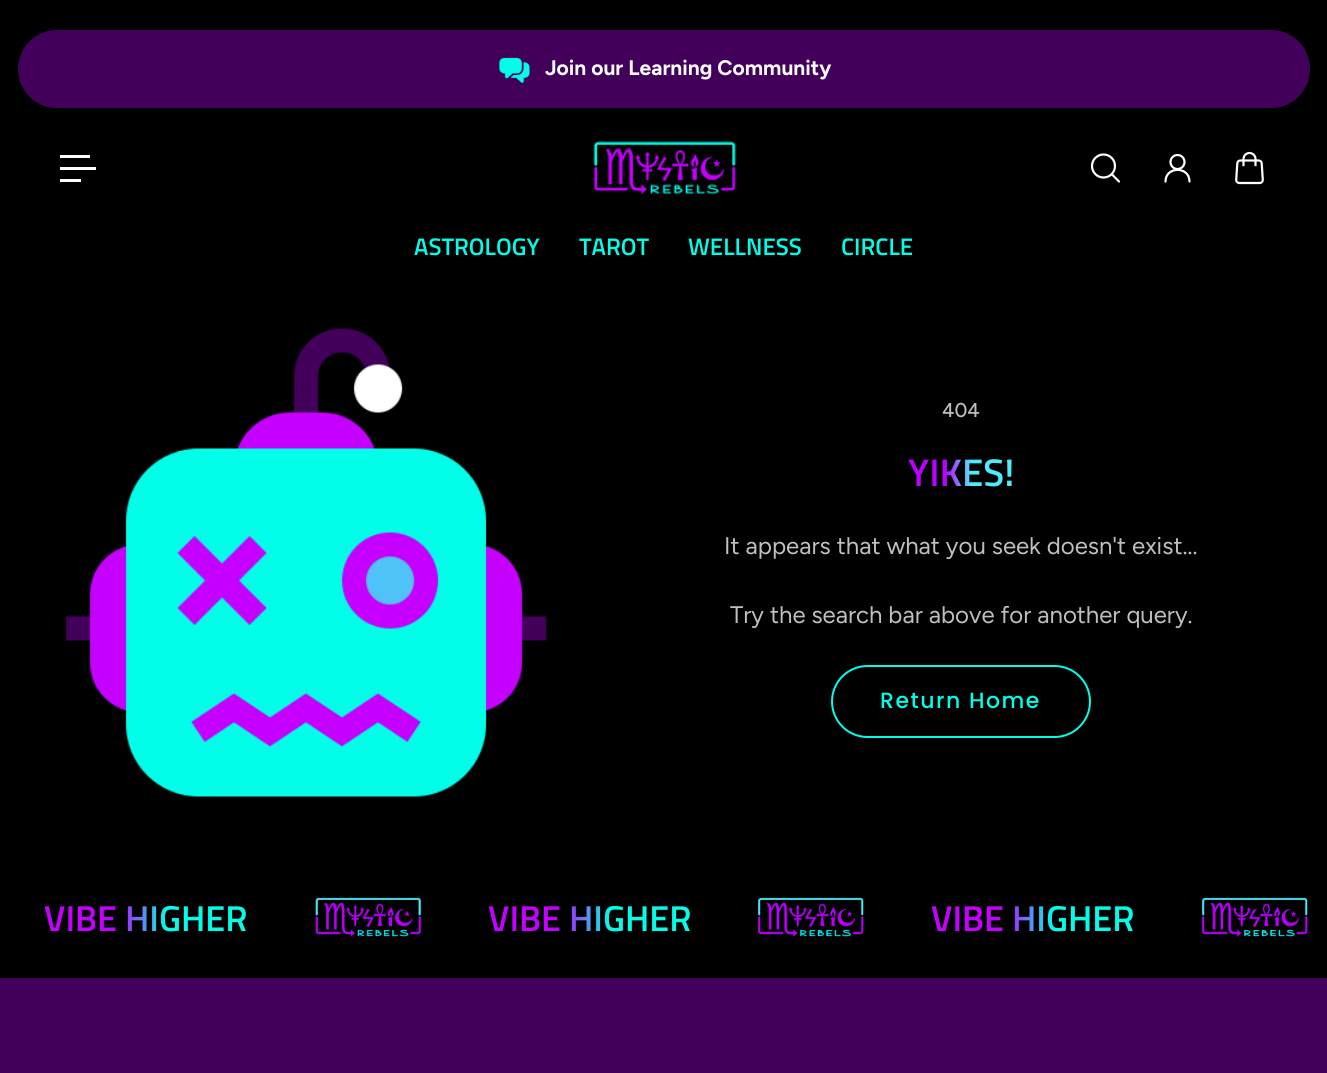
#include <cairo.h>
#include <math.h>
#include <stddef.h>

typedef struct { double x, y; const char *s; } line_t;
typedef struct { double x, y, w, h; unsigned color; } box_t;

static void ink(cairo_t *ctx, unsigned color) {
    cairo_set_source_rgb(ctx, (color >> 16) / 255.0, (color >> 8 & 255) / 255.0, (color & 255) / 255.0);
}

static void write_spaced(cairo_t *ctx, double x, double y, const char *s, double letter, double word) {
    cairo_move_to(ctx, x, y);
    while (*s) {
        char ch[5] = {0};
        int n = 0;
        do ch[n++] = *s++; while ((*s & 0xC0) == 0x80);
        cairo_show_text(ctx, ch);
        cairo_rel_move_to(ctx, letter + word * (*ch == ' '), 0);
    }
}

static void round_path(cairo_t *ctx, double x, double y, double w, double h, double r) {
    cairo_new_sub_path(ctx);
    cairo_arc(ctx, x + w - r, y + h - r, r, 0, M_PI / 2);
    cairo_arc(ctx, x + r, y + h - r, r, M_PI / 2, M_PI);
    cairo_arc(ctx, x + r, y + r, r, M_PI, 1.5 * M_PI);
    cairo_arc(ctx, x + w - r, y + r, r, 1.5 * M_PI, 2 * M_PI);
    cairo_close_path(ctx);
}

static void paste(cairo_t *ctx, const char *path, double x, double y, double w, double h) {
    cairo_surface_t *image = cairo_image_surface_create_from_png(path);
    cairo_save(ctx);
    cairo_set_source_surface(ctx, image, x, y);
    cairo_rectangle(ctx, x, y, w, h);
    cairo_fill(ctx);
    cairo_restore(ctx);
    cairo_surface_destroy(image);
}

int main(void) {
    cairo_surface_t *surface = cairo_image_surface_create(CAIRO_FORMAT_RGB24, 1327, 1073);
    cairo_t *ctx = cairo_create(surface);
    cairo_font_options_t *options = cairo_font_options_create();
    cairo_font_options_set_hint_metrics(options, CAIRO_HINT_METRICS_OFF);
    cairo_font_options_set_hint_style(options, CAIRO_HINT_STYLE_NONE);
    cairo_set_font_options(ctx, options);
    cairo_set_miter_limit(ctx, 4);
    cairo_pattern_t *gradient;
    ink(ctx, 0x000000);
    cairo_paint(ctx);
    ink(ctx, 0x43005A);
    round_path(ctx, 18, 30, 1292, 78, 39);
    cairo_fill(ctx);
    paste(ctx, "media/1.png", 498, 57, 32, 27);
    cairo_select_font_face(ctx, "Figtree", CAIRO_FONT_SLANT_NORMAL, CAIRO_FONT_WEIGHT_BOLD);
    cairo_set_font_size(ctx, 21);
    ink(ctx, 0xFFFFFF);
    cairo_move_to(ctx, 545, 75);
    cairo_show_text(ctx, "Join our Learning Community");
    {
        static const box_t items[] = {
            {60, 155, 30, 3, 0xFFFFFF},
            {60, 167, 36, 3, 0xFFFFFF},
            {60, 179, 21, 3, 0xFFFFFF},
        };
        for (size_t i = 0; i < sizeof items / sizeof *items; i++) {
            ink(ctx, items[i].color);
            cairo_rectangle(ctx, items[i].x, items[i].y, items[i].w, items[i].h);
            cairo_fill(ctx);
        }
    }
    paste(ctx, "media/2.png", 593, 141, 143, 54);
    cairo_arc(ctx, 1103.5, 166, 11.5, 0, 2 * M_PI);
    cairo_set_line_width(ctx, 2.2);
    cairo_stroke(ctx);
    cairo_new_path(ctx);
    cairo_move_to(ctx, 1112, 174.5);
    cairo_line_to(ctx, 1119, 181.5);
    cairo_set_line_cap(ctx, CAIRO_LINE_CAP_ROUND);
    cairo_set_line_join(ctx, CAIRO_LINE_JOIN_ROUND);
    cairo_stroke(ctx);
    cairo_arc(ctx, 1177.5, 162, 7, 0, 2 * M_PI);
    cairo_set_line_cap(ctx, CAIRO_LINE_CAP_BUTT);
    cairo_set_line_join(ctx, CAIRO_LINE_JOIN_MITER);
    cairo_stroke(ctx);
    cairo_new_path(ctx);
    cairo_move_to(ctx, 1189.5, 181.5);
    cairo_curve_to(ctx, 1189.5, 166, 1165.5, 166, 1165.5, 181.5);
    cairo_set_line_cap(ctx, CAIRO_LINE_CAP_ROUND);
    cairo_set_line_join(ctx, CAIRO_LINE_JOIN_ROUND);
    cairo_stroke(ctx);
    paste(ctx, "media/3.png", 1235, 151, 29, 34);
    cairo_select_font_face(ctx, "Titillium Web SemiBold", CAIRO_FONT_SLANT_NORMAL, CAIRO_FONT_WEIGHT_NORMAL);
    cairo_set_font_size(ctx, 24);
    ink(ctx, 0x01FEE9);
    {
        static const line_t items[] = {
            {414, 255, "ASTROLOGY"},
            {579, 255, "TAROT"},
            {688, 255, "WELLNESS"},
            {841, 255, "CIRCLE"},
        };
        for (size_t i = 0; i < sizeof items / sizeof *items; i++) {
            cairo_move_to(ctx, items[i].x, items[i].y);
            cairo_show_text(ctx, items[i].s);
        }
    }
    paste(ctx, "media/4.png", 65, 328, 482, 469);
    cairo_select_font_face(ctx, "Figtree Medium", CAIRO_FONT_SLANT_NORMAL, CAIRO_FONT_WEIGHT_NORMAL);
    cairo_set_font_size(ctx, 20);
    ink(ctx, 0xBFBFBF);
    cairo_move_to(ctx, 942, 417);
    cairo_show_text(ctx, "404");
    cairo_select_font_face(ctx, "Titillium Web SemiBold", CAIRO_FONT_SLANT_NORMAL, CAIRO_FONT_WEIGHT_NORMAL);
    cairo_set_font_size(ctx, 38.5);
    gradient = cairo_pattern_create_linear(908, 473, 1014, 473);
    cairo_pattern_add_color_stop_rgba(gradient, 0.35, 0.729, 0.004, 1, 1);
    cairo_pattern_add_color_stop_rgba(gradient, 0.6, 0.302, 0.925, 0.984, 1);
    cairo_set_source(ctx, gradient);
    cairo_pattern_destroy(gradient);
    cairo_move_to(ctx, 908, 486);
    cairo_show_text(ctx, "YIKES!");
    cairo_select_font_face(ctx, "Figtree", CAIRO_FONT_SLANT_NORMAL, CAIRO_FONT_WEIGHT_NORMAL);
    cairo_set_font_size(ctx, 24);
    ink(ctx, 0xBFBFBF);
    cairo_move_to(ctx, 724, 554);
    cairo_show_text(ctx, "It appears that what you seek doesn't exist...");
    cairo_move_to(ctx, 730, 623);
    cairo_show_text(ctx, "Try the search bar above for another query.");
    round_path(ctx, 832, 666, 258, 71, 35.5);
    ink(ctx, 0x01FEE9);
    cairo_set_line_width(ctx, 2);
    cairo_set_line_cap(ctx, CAIRO_LINE_CAP_BUTT);
    cairo_set_line_join(ctx, CAIRO_LINE_JOIN_MITER);
    cairo_stroke(ctx);
    cairo_select_font_face(ctx, "Poppins Medium", CAIRO_FONT_SLANT_NORMAL, CAIRO_FONT_WEIGHT_NORMAL);
    cairo_set_font_size(ctx, 22);
    write_spaced(ctx, 880, 708, "Return Home", 1.5, 0);
    cairo_select_font_face(ctx, "Titillium Web SemiBold", CAIRO_FONT_SLANT_NORMAL, CAIRO_FONT_WEIGHT_NORMAL);
    cairo_set_font_size(ctx, 36);
    gradient = cairo_pattern_create_linear(44, 918, 248, 918);
    cairo_pattern_add_color_stop_rgba(gradient, 0.35, 0.773, 0, 1, 1);
    cairo_pattern_add_color_stop_rgba(gradient, 0.6, 0.004, 0.996, 0.914, 1);
    cairo_set_source(ctx, gradient);
    cairo_pattern_destroy(gradient);
    cairo_move_to(ctx, 44, 931);
    cairo_show_text(ctx, "VIBE HIGHER");
    paste(ctx, "media/5.png", 315, 897, 107, 40);
    gradient = cairo_pattern_create_linear(488, 918, 691, 918);
    cairo_pattern_add_color_stop_rgba(gradient, 0.35, 0.773, 0, 1, 1);
    cairo_pattern_add_color_stop_rgba(gradient, 0.6, 0.004, 0.996, 0.914, 1);
    cairo_set_source(ctx, gradient);
    cairo_pattern_destroy(gradient);
    cairo_move_to(ctx, 488, 931);
    cairo_show_text(ctx, "VIBE HIGHER");
    paste(ctx, "media/6.png", 758, 897, 106, 40);
    gradient = cairo_pattern_create_linear(931, 918, 1135, 918);
    cairo_pattern_add_color_stop_rgba(gradient, 0.35, 0.773, 0, 1, 1);
    cairo_pattern_add_color_stop_rgba(gradient, 0.6, 0.004, 0.996, 0.914, 1);
    cairo_set_source(ctx, gradient);
    cairo_pattern_destroy(gradient);
    cairo_move_to(ctx, 931, 931);
    cairo_show_text(ctx, "VIBE HIGHER");
    paste(ctx, "media/6.png", 1202, 897, 106, 40);
    ink(ctx, 0x43005A);
    cairo_rectangle(ctx, 0, 978, 1327, 95);
    cairo_fill(ctx);
    cairo_surface_write_to_png(surface, "image.png");
    cairo_font_options_destroy(options);
    cairo_destroy(ctx);
    cairo_surface_destroy(surface);
    return 0;
}
